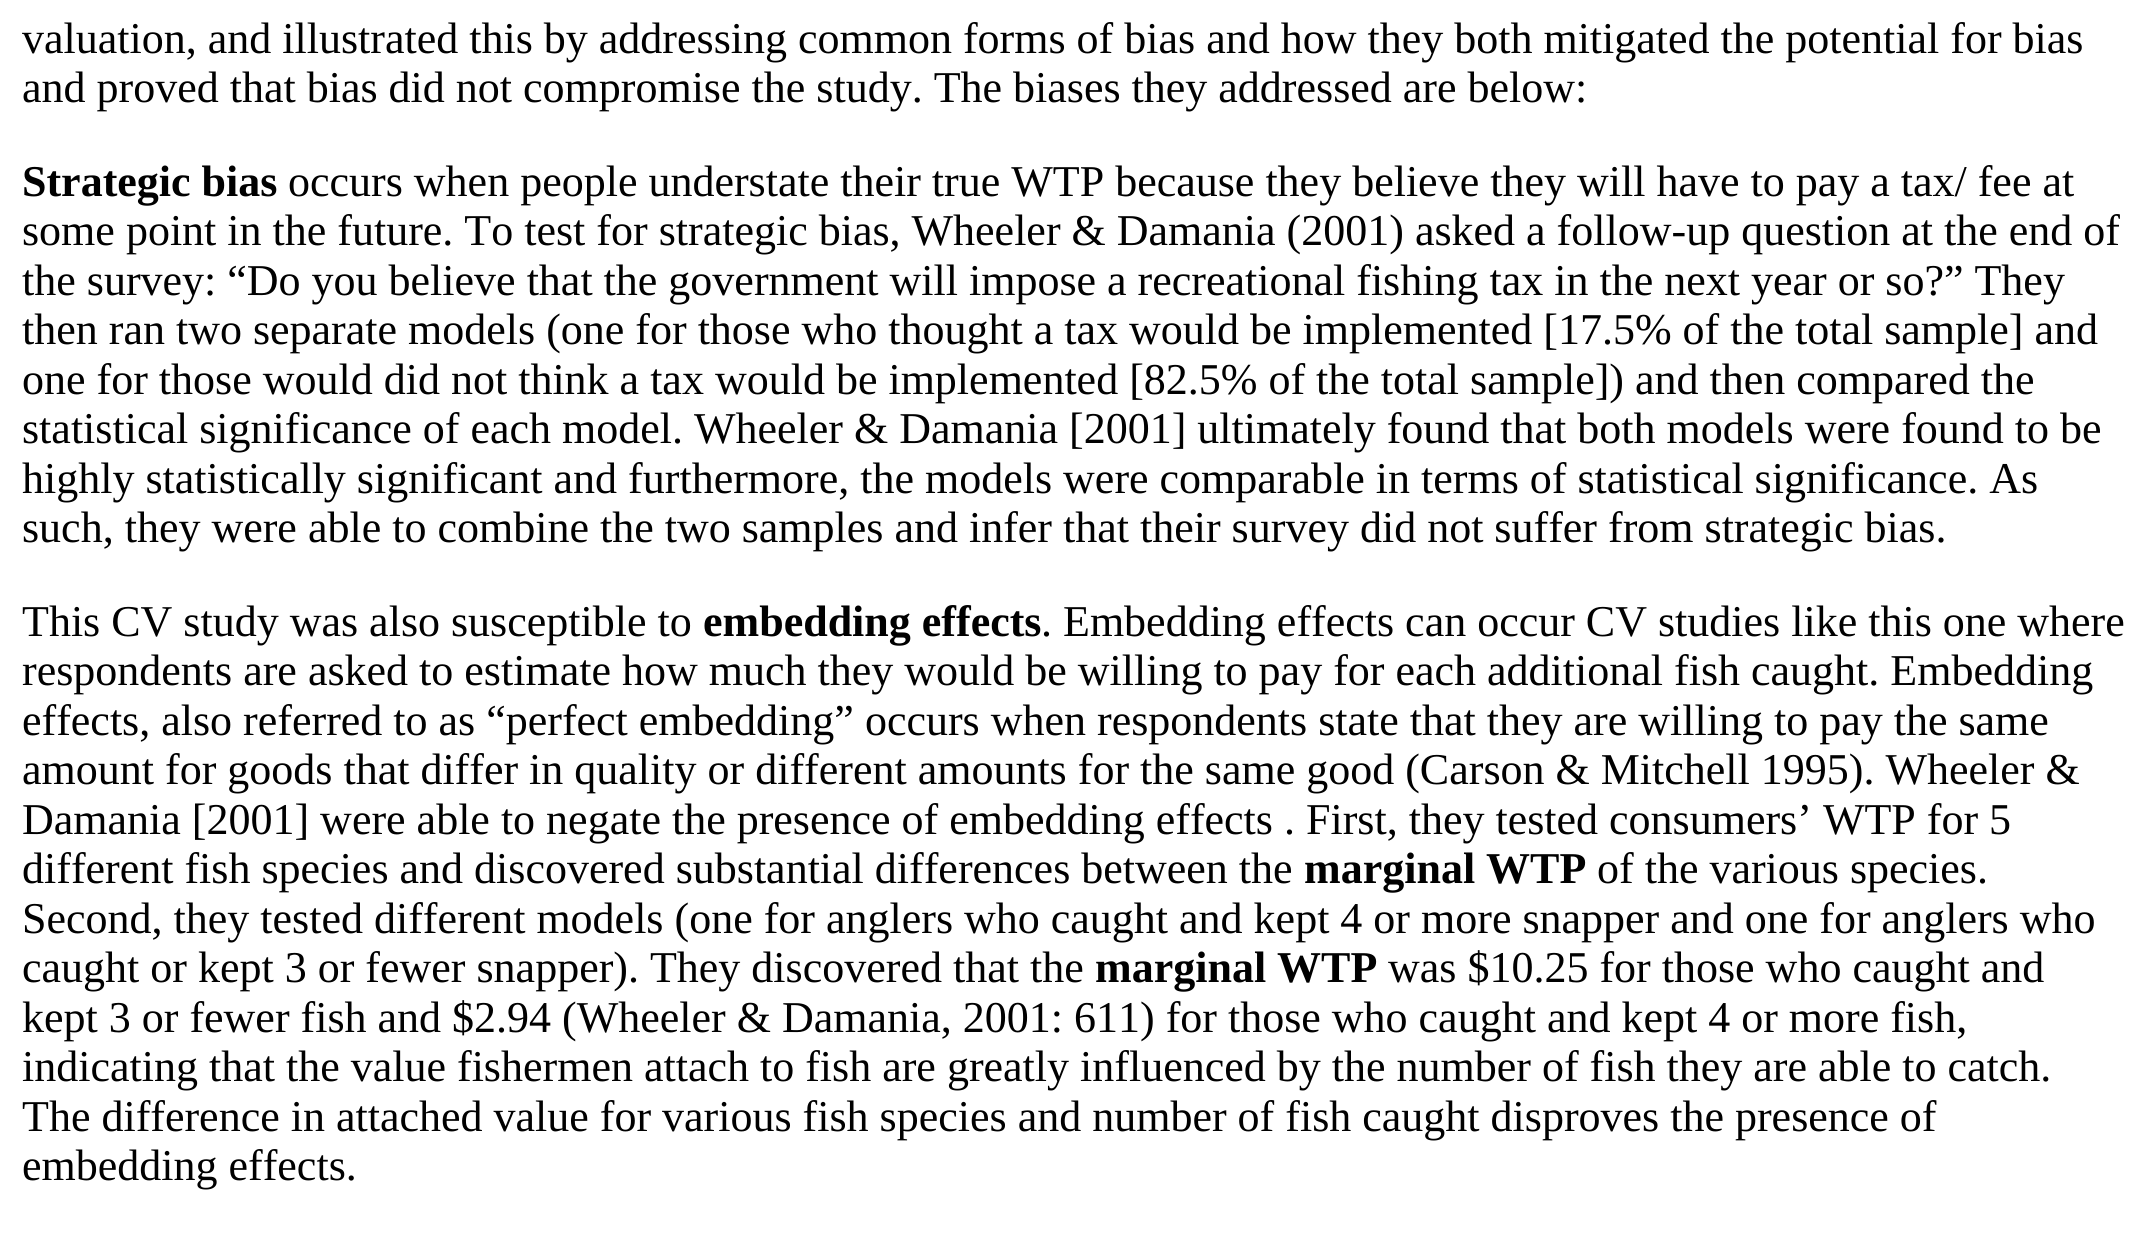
#include <cairo.h>
#include <math.h>
#include <stddef.h>

typedef struct { double x, y; const char *s; } line_t;

static void ink(cairo_t *ctx, unsigned color) {
    cairo_set_source_rgb(ctx, (color >> 16) / 255.0, (color >> 8 & 255) / 255.0, (color & 255) / 255.0);
}

int main(void) {
    cairo_surface_t *surface = cairo_image_surface_create(CAIRO_FORMAT_RGB24, 2147, 1245);
    cairo_t *ctx = cairo_create(surface);
    cairo_font_options_t *options = cairo_font_options_create();
    cairo_font_options_set_hint_metrics(options, CAIRO_HINT_METRICS_OFF);
    cairo_font_options_set_hint_style(options, CAIRO_HINT_STYLE_NONE);
    cairo_set_font_options(ctx, options);
    cairo_set_miter_limit(ctx, 4);
    ink(ctx, 0xFFFFFF);
    cairo_paint(ctx);
    cairo_select_font_face(ctx, "Liberation Serif", CAIRO_FONT_SLANT_NORMAL, CAIRO_FONT_WEIGHT_NORMAL);
    cairo_set_font_size(ctx, 44);
    ink(ctx, 0x000000);
    cairo_move_to(ctx, 22, 53);
    cairo_show_text(ctx, "valuation, and illustrated this by addressing common forms of bias and how they both mitigated the potential for bias");
    cairo_move_to(ctx, 22, 102);
    cairo_show_text(ctx, "and proved that bias did not compromise the study. The biases they addressed are below:");
    cairo_select_font_face(ctx, "Liberation Serif", CAIRO_FONT_SLANT_NORMAL, CAIRO_FONT_WEIGHT_BOLD);
    cairo_move_to(ctx, 22, 196);
    cairo_show_text(ctx, "Strategic bias");
    cairo_select_font_face(ctx, "Liberation Serif", CAIRO_FONT_SLANT_NORMAL, CAIRO_FONT_WEIGHT_NORMAL);
    {
        static const line_t items[] = {
            {288, 196, "occurs when people understate their true WTP because they believe they will have to pay a tax/ fee at"},
            {22, 245, "some point in the future. To test for strategic bias, Wheeler & Damania (2001) asked a follow-up question at the end of"},
            {22, 295, "the survey: “Do you believe that the government will impose a recreational fishing tax in the next year or so?” They"},
            {22, 344, "then ran two separate models (one for those who thought a tax would be implemented [17.5% of the total sample] and"},
            {22, 394, "one for those would did not think a tax would be implemented [82.5% of the total sample]) and then compared the"},
            {22, 443, "statistical significance of each model. Wheeler & Damania [2001] ultimately found that both models were found to be"},
            {22, 493, "highly statistically significant and furthermore, the models were comparable in terms of statistical significance. As"},
            {22, 542, "such, they were able to combine the two samples and infer that their survey did not suffer from strategic bias."},
            {22, 636, "This CV study was also susceptible to"},
        };
        for (size_t i = 0; i < sizeof items / sizeof *items; i++) {
            cairo_move_to(ctx, items[i].x, items[i].y);
            cairo_show_text(ctx, items[i].s);
        }
    }
    cairo_select_font_face(ctx, "Liberation Serif", CAIRO_FONT_SLANT_NORMAL, CAIRO_FONT_WEIGHT_BOLD);
    cairo_move_to(ctx, 703, 636);
    cairo_show_text(ctx, "embedding effects");
    cairo_select_font_face(ctx, "Liberation Serif", CAIRO_FONT_SLANT_NORMAL, CAIRO_FONT_WEIGHT_NORMAL);
    {
        static const line_t items[] = {
            {1041, 636, ". Embedding effects can occur CV studies like this one where"},
            {22, 685, "respondents are asked to estimate how much they would be willing to pay for each additional fish caught. Embedding"},
            {22, 735, "effects, also referred to as “perfect embedding” occurs when respondents state that they are willing to pay the same"},
            {22, 784, "amount for goods that differ in quality or different amounts for the same good (Carson & Mitchell 1995). Wheeler &"},
            {22, 834, "Damania [2001] were able to negate the presence of embedding effects . First, they tested consumers’ WTP for 5"},
            {22, 883, "different fish species and discovered substantial differences between the"},
        };
        for (size_t i = 0; i < sizeof items / sizeof *items; i++) {
            cairo_move_to(ctx, items[i].x, items[i].y);
            cairo_show_text(ctx, items[i].s);
        }
    }
    cairo_select_font_face(ctx, "Liberation Serif", CAIRO_FONT_SLANT_NORMAL, CAIRO_FONT_WEIGHT_BOLD);
    cairo_move_to(ctx, 1304, 883);
    cairo_show_text(ctx, "marginal WTP");
    cairo_select_font_face(ctx, "Liberation Serif", CAIRO_FONT_SLANT_NORMAL, CAIRO_FONT_WEIGHT_NORMAL);
    {
        static const line_t items[] = {
            {1597, 883, "of the various species."},
            {22, 933, "Second, they tested different models (one for anglers who caught and kept 4 or more snapper and one for anglers who"},
            {22, 982, "caught or kept 3 or fewer snapper). They discovered that the"},
        };
        for (size_t i = 0; i < sizeof items / sizeof *items; i++) {
            cairo_move_to(ctx, items[i].x, items[i].y);
            cairo_show_text(ctx, items[i].s);
        }
    }
    cairo_select_font_face(ctx, "Liberation Serif", CAIRO_FONT_SLANT_NORMAL, CAIRO_FONT_WEIGHT_BOLD);
    cairo_move_to(ctx, 1095, 982);
    cairo_show_text(ctx, "marginal WTP");
    cairo_select_font_face(ctx, "Liberation Serif", CAIRO_FONT_SLANT_NORMAL, CAIRO_FONT_WEIGHT_NORMAL);
    {
        static const line_t items[] = {
            {1388, 982, "was $10.25 for those who caught and"},
            {22, 1032, "kept 3 or fewer fish and $2.94 (Wheeler & Damania, 2001: 611) for those who caught and kept 4 or more fish,"},
            {22, 1081, "indicating that the value fishermen attach to fish are greatly influenced by the number of fish they are able to catch."},
            {22, 1131, "The difference in attached value for various fish species and number of fish caught disproves the presence of"},
            {22, 1180, "embedding effects."},
        };
        for (size_t i = 0; i < sizeof items / sizeof *items; i++) {
            cairo_move_to(ctx, items[i].x, items[i].y);
            cairo_show_text(ctx, items[i].s);
        }
    }
    cairo_surface_write_to_png(surface, "image.png");
    cairo_font_options_destroy(options);
    cairo_destroy(ctx);
    cairo_surface_destroy(surface);
    return 0;
}
